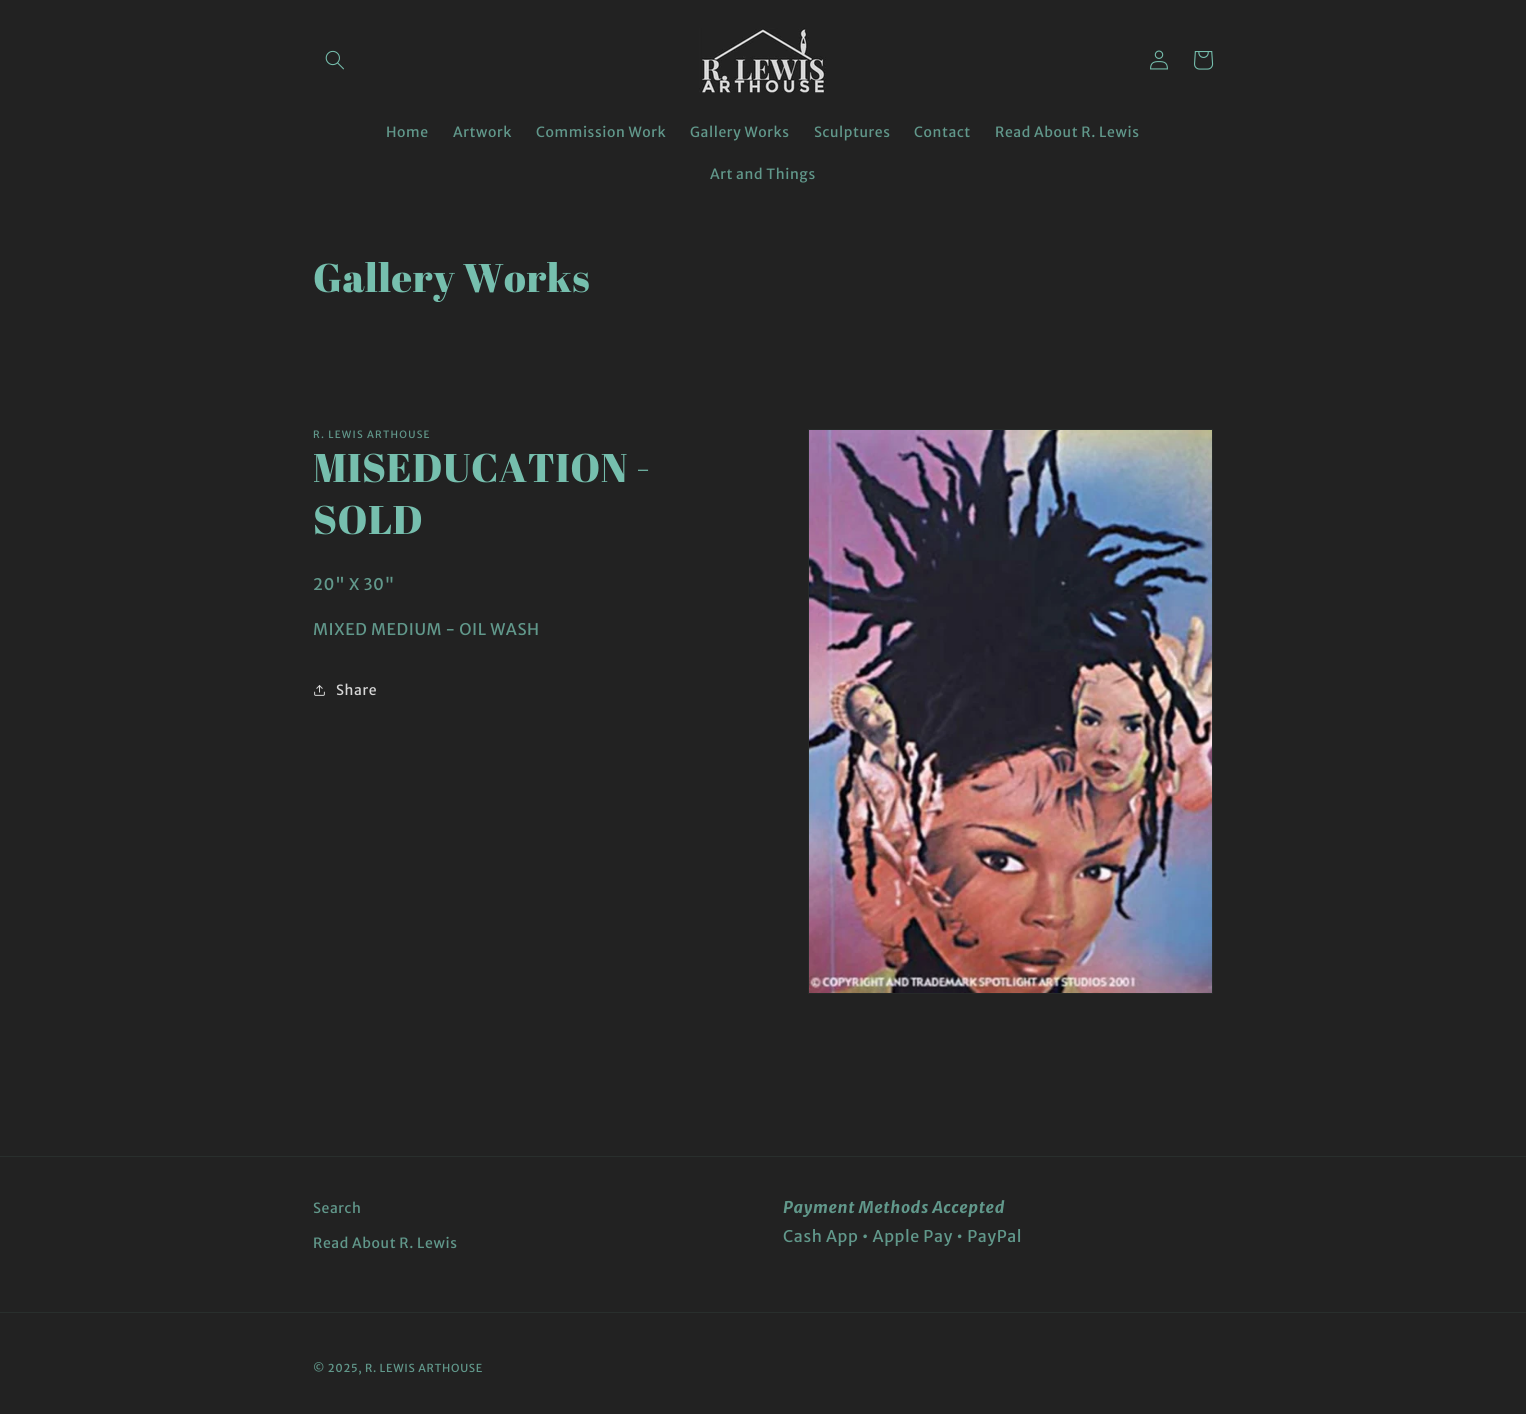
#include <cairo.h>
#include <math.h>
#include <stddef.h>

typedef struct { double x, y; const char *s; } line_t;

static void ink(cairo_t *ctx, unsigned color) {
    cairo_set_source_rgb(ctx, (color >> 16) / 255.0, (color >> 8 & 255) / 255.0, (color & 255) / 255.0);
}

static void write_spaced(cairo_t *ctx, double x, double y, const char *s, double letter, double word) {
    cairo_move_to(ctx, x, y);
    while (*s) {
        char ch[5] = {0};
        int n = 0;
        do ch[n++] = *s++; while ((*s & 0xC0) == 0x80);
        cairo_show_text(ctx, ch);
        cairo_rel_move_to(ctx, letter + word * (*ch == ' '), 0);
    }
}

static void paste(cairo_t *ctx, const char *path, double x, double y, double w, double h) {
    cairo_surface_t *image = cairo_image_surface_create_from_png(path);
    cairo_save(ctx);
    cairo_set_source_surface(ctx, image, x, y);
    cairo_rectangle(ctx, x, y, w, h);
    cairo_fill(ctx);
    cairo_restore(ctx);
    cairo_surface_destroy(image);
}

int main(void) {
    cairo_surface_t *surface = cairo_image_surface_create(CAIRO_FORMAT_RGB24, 1526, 1414);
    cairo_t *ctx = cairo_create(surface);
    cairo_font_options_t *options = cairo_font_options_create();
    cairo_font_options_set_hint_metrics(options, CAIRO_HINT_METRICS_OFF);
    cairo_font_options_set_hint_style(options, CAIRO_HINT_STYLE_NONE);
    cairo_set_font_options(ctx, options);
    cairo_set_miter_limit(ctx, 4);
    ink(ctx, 0x222222);
    cairo_paint(ctx);
    paste(ctx, "media/1.png", 325, 50, 19, 20);
    paste(ctx, "media/2.png", 699, 28, 127, 65);
    paste(ctx, "media/3.png", 1150, 50, 18, 20);
    paste(ctx, "media/4.png", 1194, 51, 20, 19);
    cairo_select_font_face(ctx, "Merriweather Sans", CAIRO_FONT_SLANT_NORMAL, CAIRO_FONT_WEIGHT_NORMAL);
    cairo_set_font_size(ctx, 14);
    ink(ctx, 0x61988B);
    {
        static const line_t items[] = {
            {386, 137, "Home"},
            {453, 137, "Artwork"},
            {536, 137, "Commission Work"},
            {690, 137, "Gallery Works"},
            {814, 137, "Sculptures"},
            {914, 137, "Contact"},
            {995, 137, "Read About R. Lewis"},
            {710, 179, "Art and Things"},
        };
        for (size_t i = 0; i < sizeof items / sizeof *items; i++) {
            write_spaced(ctx, items[i].x, items[i].y, items[i].s, 0.6, 0);
        }
    }
    cairo_select_font_face(ctx, "Abril Fatface", CAIRO_FONT_SLANT_NORMAL, CAIRO_FONT_WEIGHT_NORMAL);
    cairo_set_font_size(ctx, 40);
    ink(ctx, 0x76BFAE);
    write_spaced(ctx, 313, 292, "Gallery Works", 0.6, 0);
    cairo_select_font_face(ctx, "Merriweather Sans", CAIRO_FONT_SLANT_NORMAL, CAIRO_FONT_WEIGHT_NORMAL);
    cairo_set_font_size(ctx, 10);
    ink(ctx, 0x61988B);
    write_spaced(ctx, 313, 438, "R. LEWIS ARTHOUSE", 1.25, 0);
    cairo_select_font_face(ctx, "Abril Fatface", CAIRO_FONT_SLANT_NORMAL, CAIRO_FONT_WEIGHT_NORMAL);
    cairo_set_font_size(ctx, 40);
    ink(ctx, 0x76BFAE);
    write_spaced(ctx, 313, 482, "MISEDUCATION -", 0.6, 0);
    write_spaced(ctx, 313, 534, "SOLD", 0.6, 0);
    cairo_select_font_face(ctx, "Merriweather Sans", CAIRO_FONT_SLANT_NORMAL, CAIRO_FONT_WEIGHT_NORMAL);
    cairo_set_font_size(ctx, 16);
    ink(ctx, 0x61988B);
    write_spaced(ctx, 313, 590, "20\" X 30\"", 0.6, 0);
    write_spaced(ctx, 313, 635, "MIXED MEDIUM - OIL WASH", 0.6, 0);
    paste(ctx, "media/5.png", 314, 685, 11, 11);
    cairo_set_font_size(ctx, 14);
    ink(ctx, 0xD7D7D7);
    write_spaced(ctx, 336, 695, "Share", 0.6, 0);
    cairo_rectangle(ctx, 808.5, 429.5, 404, 564);
    ink(ctx, 0x262A29);
    cairo_set_line_width(ctx, 1);
    cairo_stroke(ctx);
    paste(ctx, "media/6.png", 809, 430, 403, 563);
    ink(ctx, 0x292F2D);
    cairo_rectangle(ctx, 0, 1156, 1526, 1);
    cairo_fill(ctx);
    ink(ctx, 0x61988B);
    write_spaced(ctx, 313, 1213, "Search", 0.6, 0);
    write_spaced(ctx, 313, 1248, "Read About R. Lewis", 0.6, 0);
    cairo_select_font_face(ctx, "Merriweather Sans", CAIRO_FONT_SLANT_ITALIC, CAIRO_FONT_WEIGHT_BOLD);
    cairo_set_font_size(ctx, 16);
    write_spaced(ctx, 783, 1213, "Payment Methods Accepted", 0.6, 0);
    cairo_select_font_face(ctx, "Merriweather Sans", CAIRO_FONT_SLANT_NORMAL, CAIRO_FONT_WEIGHT_NORMAL);
    write_spaced(ctx, 783, 1242, "Cash App • Apple Pay • PayPal", 0.6, 0);
    ink(ctx, 0x292F2D);
    cairo_rectangle(ctx, 0, 1312, 1526, 1);
    cairo_fill(ctx);
    cairo_set_font_size(ctx, 11);
    ink(ctx, 0x61988B);
    write_spaced(ctx, 313, 1372, "© 2025, R. LEWIS ARTHOUSE", 0.7, 0);
    cairo_surface_write_to_png(surface, "image.png");
    cairo_font_options_destroy(options);
    cairo_destroy(ctx);
    cairo_surface_destroy(surface);
    return 0;
}
